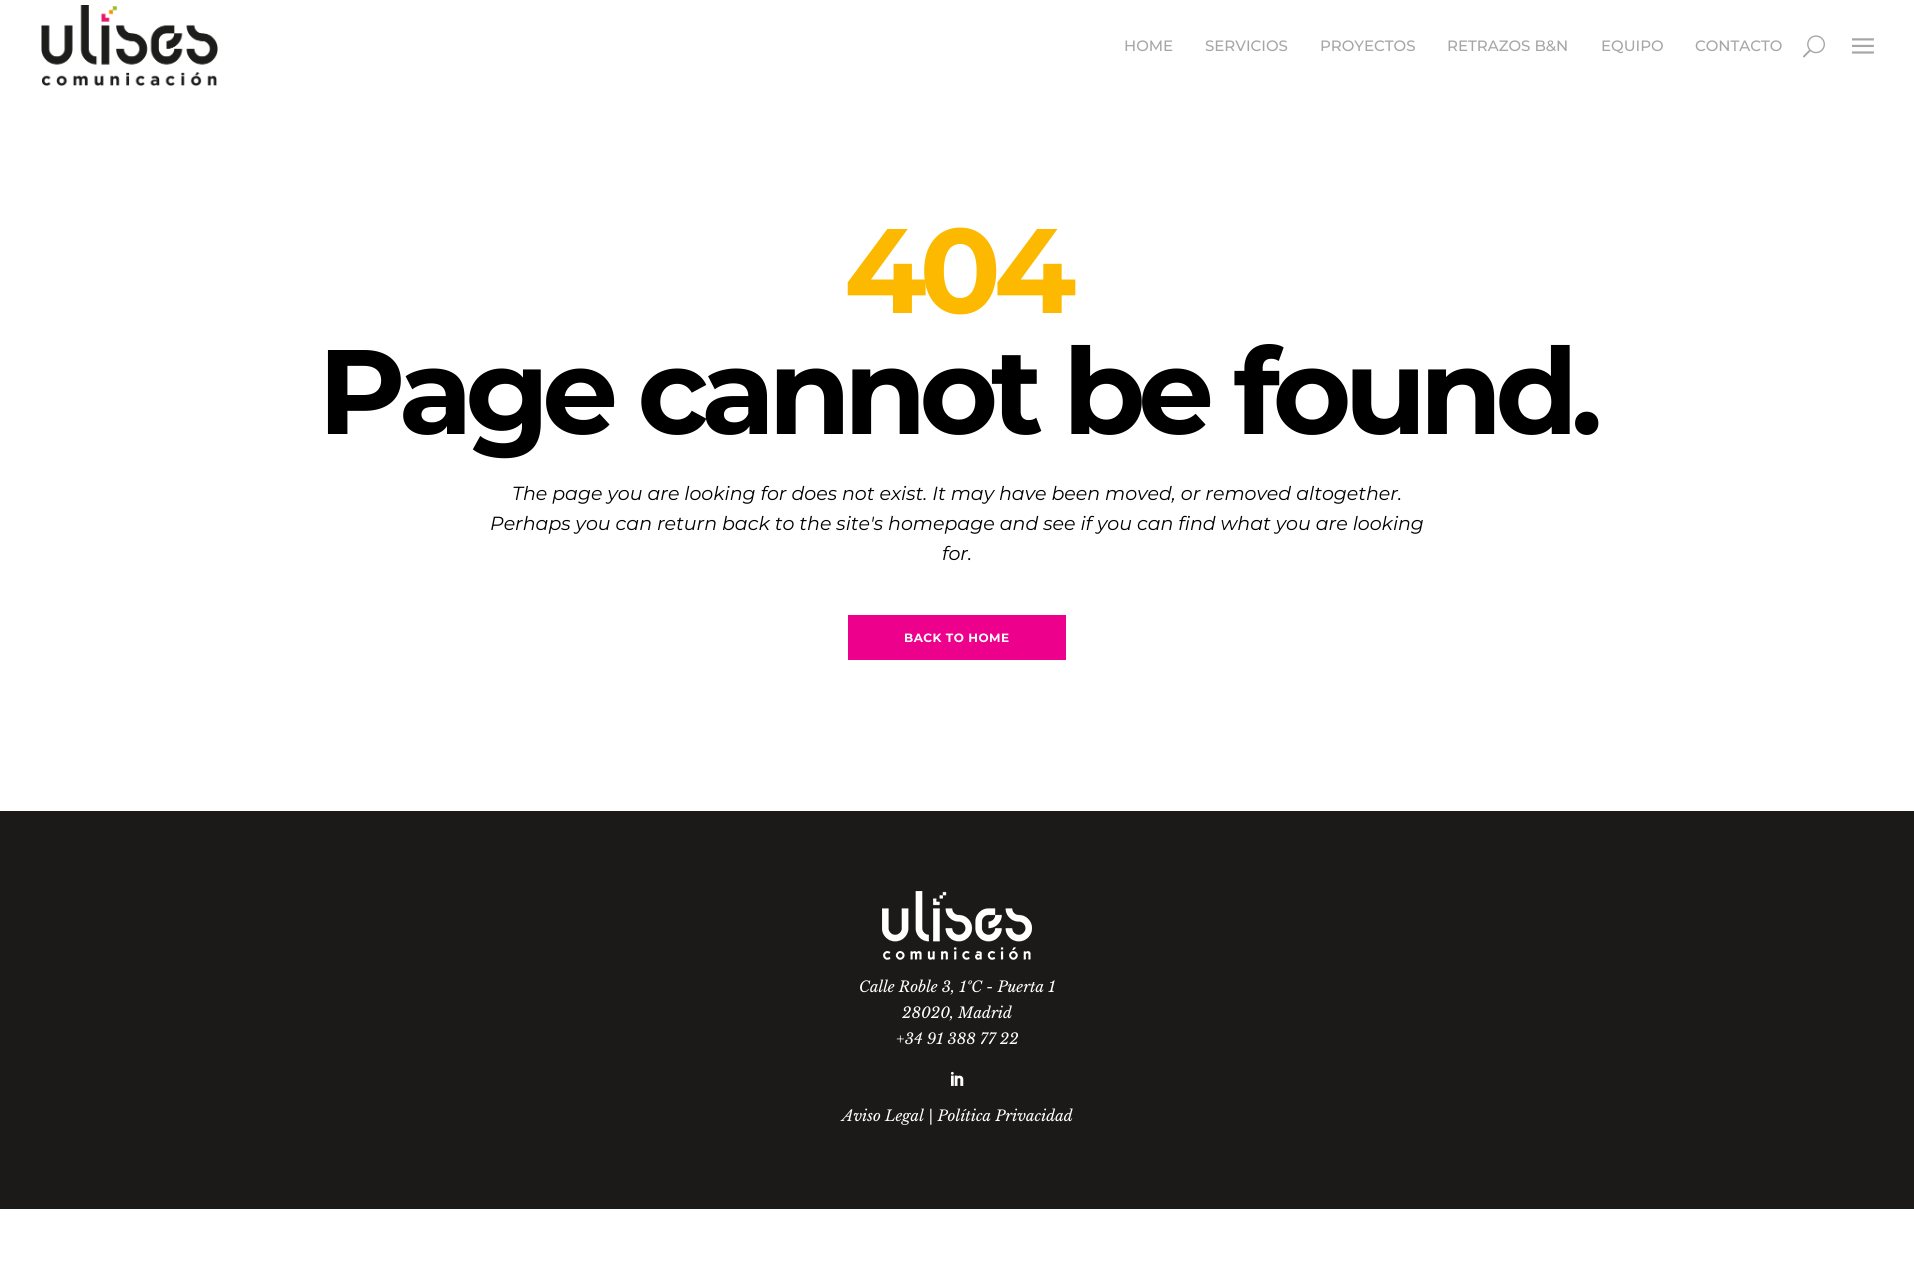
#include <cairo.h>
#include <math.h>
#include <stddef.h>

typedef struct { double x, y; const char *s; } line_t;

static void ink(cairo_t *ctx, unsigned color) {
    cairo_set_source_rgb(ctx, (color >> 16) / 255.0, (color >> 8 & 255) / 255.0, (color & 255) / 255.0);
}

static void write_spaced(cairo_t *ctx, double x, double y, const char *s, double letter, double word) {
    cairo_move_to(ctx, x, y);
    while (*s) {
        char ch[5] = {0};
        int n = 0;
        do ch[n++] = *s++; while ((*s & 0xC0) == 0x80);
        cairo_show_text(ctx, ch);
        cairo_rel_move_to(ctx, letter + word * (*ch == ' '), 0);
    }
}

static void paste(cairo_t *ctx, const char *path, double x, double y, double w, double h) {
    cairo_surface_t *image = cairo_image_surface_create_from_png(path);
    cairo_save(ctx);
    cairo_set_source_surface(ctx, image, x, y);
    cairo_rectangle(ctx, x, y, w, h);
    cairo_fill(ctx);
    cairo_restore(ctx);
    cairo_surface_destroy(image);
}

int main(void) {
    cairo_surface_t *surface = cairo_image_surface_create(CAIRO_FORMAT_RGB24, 1914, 1280);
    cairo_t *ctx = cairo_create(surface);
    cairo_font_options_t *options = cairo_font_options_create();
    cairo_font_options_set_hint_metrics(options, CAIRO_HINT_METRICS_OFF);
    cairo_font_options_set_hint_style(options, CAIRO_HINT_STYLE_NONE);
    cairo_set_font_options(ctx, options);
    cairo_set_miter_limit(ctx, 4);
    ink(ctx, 0xFFFFFF);
    cairo_paint(ctx);
    paste(ctx, "media/1.png", 41, 5, 177, 81);
    cairo_select_font_face(ctx, "Montserrat Medium", CAIRO_FONT_SLANT_NORMAL, CAIRO_FONT_WEIGHT_NORMAL);
    cairo_set_font_size(ctx, 15);
    ink(ctx, 0xA6A6A6);
    {
        static const line_t items[] = {
            {1124, 51, "HOME"},
            {1205, 51, "SERVICIOS"},
            {1320, 51, "PROYECTOS"},
            {1447, 51, "RETRAZOS B&N"},
            {1601, 51, "EQUIPO"},
            {1695, 51, "CONTACTO"},
        };
        for (size_t i = 0; i < sizeof items / sizeof *items; i++) {
            cairo_move_to(ctx, items[i].x, items[i].y);
            cairo_show_text(ctx, items[i].s);
        }
    }
    paste(ctx, "media/2.png", 1803, 35, 22, 23);
    paste(ctx, "media/3.png", 1852, 38, 22, 16);
    cairo_select_font_face(ctx, "Montserrat", CAIRO_FONT_SLANT_NORMAL, CAIRO_FONT_WEIGHT_BOLD);
    cairo_set_font_size(ctx, 120);
    ink(ctx, 0xFCB900);
    write_spaced(ctx, 844, 313, "404", -7.2, 0);
    ink(ctx, 0x000000);
    write_spaced(ctx, 318, 434, "Page cannot be found.", -7.2, 0);
    cairo_select_font_face(ctx, "Montserrat", CAIRO_FONT_SLANT_ITALIC, CAIRO_FONT_WEIGHT_NORMAL);
    cairo_set_font_size(ctx, 19);
    {
        static const line_t items[] = {
            {512, 500, "The page you are looking for does not exist. It may have been moved, or removed altogether."},
            {490, 530, "Perhaps you can return back to the site's homepage and see if you can find what you are looking"},
            {942, 560, "for."},
        };
        for (size_t i = 0; i < sizeof items / sizeof *items; i++) {
            cairo_move_to(ctx, items[i].x, items[i].y);
            cairo_show_text(ctx, items[i].s);
        }
    }
    ink(ctx, 0xEC008C);
    cairo_rectangle(ctx, 848, 615, 218, 45);
    cairo_fill(ctx);
    cairo_select_font_face(ctx, "Montserrat", CAIRO_FONT_SLANT_NORMAL, CAIRO_FONT_WEIGHT_BOLD);
    cairo_set_font_size(ctx, 12);
    ink(ctx, 0xFFFFFF);
    write_spaced(ctx, 904, 642, "BACK TO HOME", 0.5, 0);
    ink(ctx, 0x1B1A18);
    cairo_rectangle(ctx, 0, 811, 1914, 398);
    cairo_fill(ctx);
    paste(ctx, "media/4.png", 882, 891, 150, 69);
    cairo_select_font_face(ctx, "Libre Baskerville", CAIRO_FONT_SLANT_ITALIC, CAIRO_FONT_WEIGHT_NORMAL);
    cairo_set_font_size(ctx, 15);
    ink(ctx, 0xFFFFFF);
    {
        static const line_t items[] = {
            {859, 992, "Calle Roble 3, 1ºC - Puerta 1"},
            {902, 1018, "28020, Madrid"},
            {896, 1044, "+34 91 388 77 22"},
        };
        for (size_t i = 0; i < sizeof items / sizeof *items; i++) {
            cairo_move_to(ctx, items[i].x, items[i].y);
            cairo_show_text(ctx, items[i].s);
        }
    }
    paste(ctx, "media/5.png", 950, 1071, 14, 15);
    cairo_move_to(ctx, 842, 1121);
    cairo_show_text(ctx, "Aviso Legal | Política Privacidad");
    cairo_surface_write_to_png(surface, "image.png");
    cairo_font_options_destroy(options);
    cairo_destroy(ctx);
    cairo_surface_destroy(surface);
    return 0;
}
